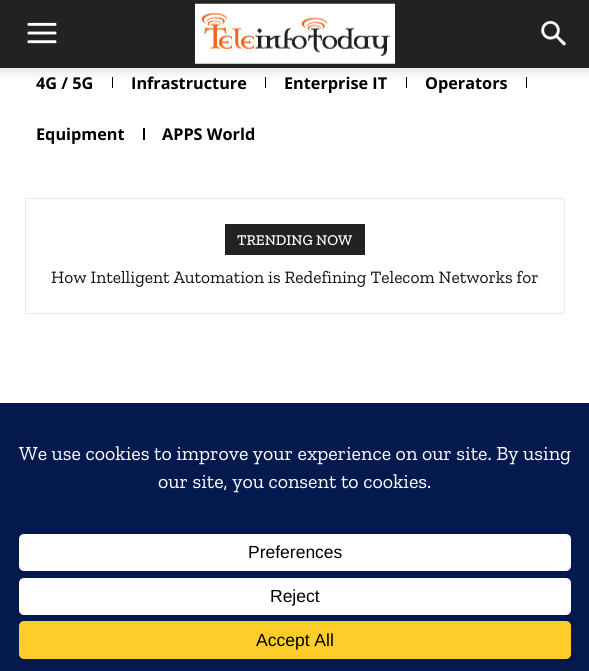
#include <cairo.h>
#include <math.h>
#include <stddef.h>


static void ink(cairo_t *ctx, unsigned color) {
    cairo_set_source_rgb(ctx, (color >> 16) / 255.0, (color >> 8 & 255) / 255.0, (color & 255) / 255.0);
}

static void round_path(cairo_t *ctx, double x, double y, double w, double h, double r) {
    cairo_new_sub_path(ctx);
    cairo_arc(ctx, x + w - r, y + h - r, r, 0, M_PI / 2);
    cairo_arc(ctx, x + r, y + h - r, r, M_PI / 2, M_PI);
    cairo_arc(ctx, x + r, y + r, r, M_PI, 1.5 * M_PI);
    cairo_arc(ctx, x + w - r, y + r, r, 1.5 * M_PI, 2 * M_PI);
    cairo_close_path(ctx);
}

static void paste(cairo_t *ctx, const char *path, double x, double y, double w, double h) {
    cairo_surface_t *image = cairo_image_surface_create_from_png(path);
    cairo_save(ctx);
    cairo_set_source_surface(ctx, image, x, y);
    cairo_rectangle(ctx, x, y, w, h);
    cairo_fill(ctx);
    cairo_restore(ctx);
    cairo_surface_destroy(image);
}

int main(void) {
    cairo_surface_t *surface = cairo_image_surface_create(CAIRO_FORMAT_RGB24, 589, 671);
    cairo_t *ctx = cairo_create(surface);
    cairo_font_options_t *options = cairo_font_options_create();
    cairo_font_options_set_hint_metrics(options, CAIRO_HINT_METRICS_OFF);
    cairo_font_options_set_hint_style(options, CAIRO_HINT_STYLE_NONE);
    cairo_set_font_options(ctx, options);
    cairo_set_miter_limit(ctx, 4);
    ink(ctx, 0xFFFFFF);
    cairo_paint(ctx);
    ink(ctx, 0x222222);
    cairo_rectangle(ctx, 0, 0, 589, 68);
    cairo_fill(ctx);
    paste(ctx, "media/1.png", 27, 22, 30, 22);
    paste(ctx, "media/2.png", 195, 3, 200, 61);
    paste(ctx, "media/3.png", 541, 21, 25, 25);
    cairo_select_font_face(ctx, "Open Sans", CAIRO_FONT_SLANT_NORMAL, CAIRO_FONT_WEIGHT_BOLD);
    cairo_set_font_size(ctx, 16.25);
    ink(ctx, 0x000000);
    cairo_move_to(ctx, 36, 89);
    cairo_show_text(ctx, "4G / 5G");
    cairo_rectangle(ctx, 112, 77, 1, 11);
    cairo_fill(ctx);
    cairo_move_to(ctx, 131, 89);
    cairo_show_text(ctx, "Infrastructure");
    cairo_rectangle(ctx, 265, 77, 1, 11);
    cairo_fill(ctx);
    cairo_move_to(ctx, 284, 89);
    cairo_show_text(ctx, "Enterprise IT");
    cairo_rectangle(ctx, 406, 77, 1, 11);
    cairo_fill(ctx);
    cairo_move_to(ctx, 425, 89);
    cairo_show_text(ctx, "Operators");
    cairo_rectangle(ctx, 526, 77, 1, 11);
    cairo_fill(ctx);
    paste(ctx, "media/4.png", 0, 68, 589, 10);
    cairo_move_to(ctx, 36, 140);
    cairo_show_text(ctx, "Equipment");
    cairo_rectangle(ctx, 143, 128, 2, 12);
    cairo_fill(ctx);
    cairo_move_to(ctx, 162, 140);
    cairo_show_text(ctx, "APPS World");
    cairo_rectangle(ctx, 25.5, 198.5, 539, 115);
    ink(ctx, 0xEAEAEA);
    cairo_set_line_width(ctx, 1);
    cairo_stroke(ctx);
    ink(ctx, 0x222222);
    cairo_rectangle(ctx, 225, 224, 140, 31);
    cairo_fill(ctx);
    cairo_select_font_face(ctx, "Zilla Slab Medium", CAIRO_FONT_SLANT_NORMAL, CAIRO_FONT_WEIGHT_NORMAL);
    cairo_set_font_size(ctx, 15);
    ink(ctx, 0xFFFFFF);
    cairo_move_to(ctx, 237, 245);
    cairo_show_text(ctx, "TRENDING NOW");
    cairo_select_font_face(ctx, "Zilla Slab", CAIRO_FONT_SLANT_NORMAL, CAIRO_FONT_WEIGHT_NORMAL);
    cairo_set_font_size(ctx, 17.5);
    ink(ctx, 0x111111);
    cairo_move_to(ctx, 51, 283);
    cairo_show_text(ctx, "How Intelligent Automation is Redefining Telecom Networks for");
    ink(ctx, 0x04194E);
    cairo_rectangle(ctx, 0, 403, 589, 268);
    cairo_fill(ctx);
    cairo_set_font_size(ctx, 20);
    ink(ctx, 0xFFFFFF);
    cairo_move_to(ctx, 19, 460);
    cairo_show_text(ctx, "We use cookies to improve your experience on our site. By using");
    cairo_move_to(ctx, 158, 488);
    cairo_show_text(ctx, "our site, you consent to cookies.");
    round_path(ctx, 19, 534, 552, 37, 5);
    cairo_fill(ctx);
    cairo_select_font_face(ctx, "Liberation Sans", CAIRO_FONT_SLANT_NORMAL, CAIRO_FONT_WEIGHT_NORMAL);
    cairo_set_font_size(ctx, 17.5);
    ink(ctx, 0x000000);
    cairo_move_to(ctx, 248, 558);
    cairo_show_text(ctx, "Preferences");
    ink(ctx, 0xFFFFFF);
    round_path(ctx, 19, 578, 552, 37, 5);
    cairo_fill(ctx);
    ink(ctx, 0x000000);
    cairo_move_to(ctx, 270, 602);
    cairo_show_text(ctx, "Reject");
    ink(ctx, 0xFFCD2A);
    round_path(ctx, 19, 621, 552, 38, 5);
    cairo_fill(ctx);
    ink(ctx, 0x000000);
    cairo_move_to(ctx, 256, 646);
    cairo_show_text(ctx, "Accept All");
    cairo_surface_write_to_png(surface, "image.png");
    cairo_font_options_destroy(options);
    cairo_destroy(ctx);
    cairo_surface_destroy(surface);
    return 0;
}
